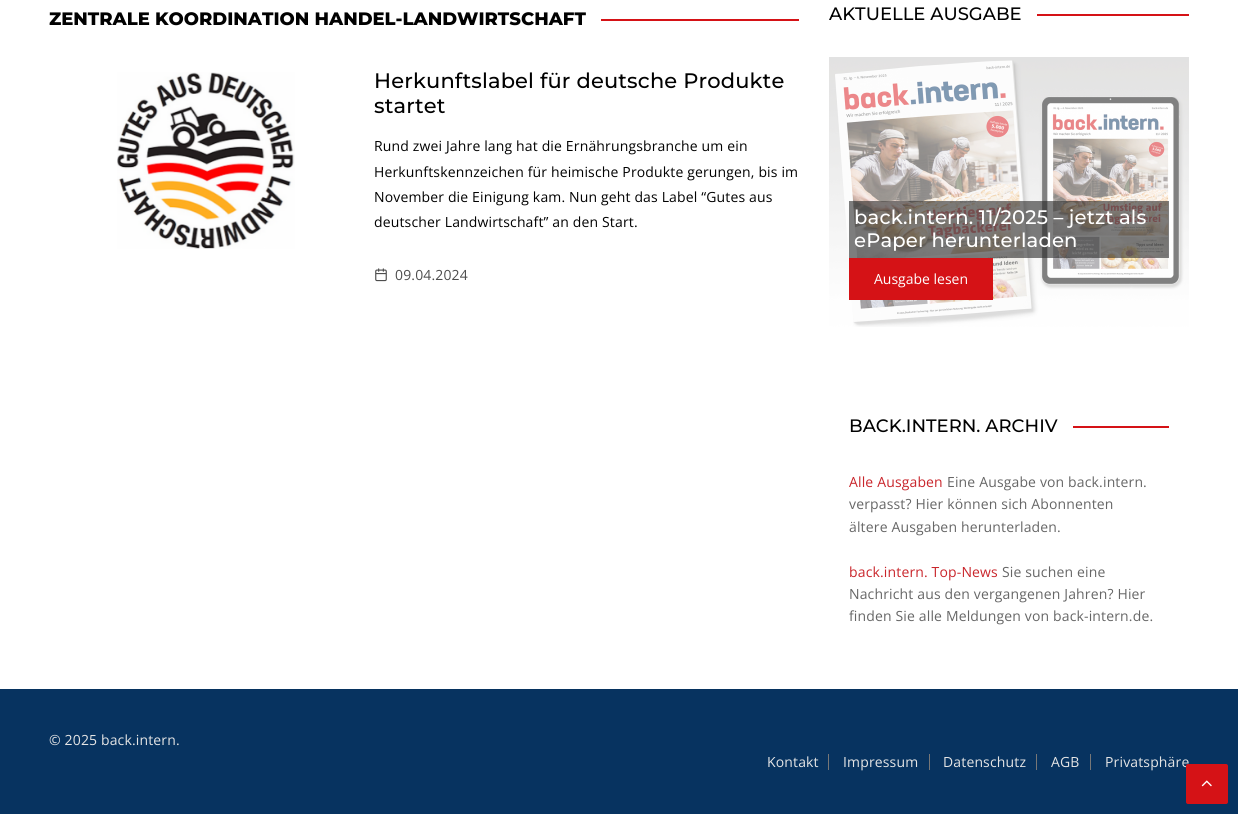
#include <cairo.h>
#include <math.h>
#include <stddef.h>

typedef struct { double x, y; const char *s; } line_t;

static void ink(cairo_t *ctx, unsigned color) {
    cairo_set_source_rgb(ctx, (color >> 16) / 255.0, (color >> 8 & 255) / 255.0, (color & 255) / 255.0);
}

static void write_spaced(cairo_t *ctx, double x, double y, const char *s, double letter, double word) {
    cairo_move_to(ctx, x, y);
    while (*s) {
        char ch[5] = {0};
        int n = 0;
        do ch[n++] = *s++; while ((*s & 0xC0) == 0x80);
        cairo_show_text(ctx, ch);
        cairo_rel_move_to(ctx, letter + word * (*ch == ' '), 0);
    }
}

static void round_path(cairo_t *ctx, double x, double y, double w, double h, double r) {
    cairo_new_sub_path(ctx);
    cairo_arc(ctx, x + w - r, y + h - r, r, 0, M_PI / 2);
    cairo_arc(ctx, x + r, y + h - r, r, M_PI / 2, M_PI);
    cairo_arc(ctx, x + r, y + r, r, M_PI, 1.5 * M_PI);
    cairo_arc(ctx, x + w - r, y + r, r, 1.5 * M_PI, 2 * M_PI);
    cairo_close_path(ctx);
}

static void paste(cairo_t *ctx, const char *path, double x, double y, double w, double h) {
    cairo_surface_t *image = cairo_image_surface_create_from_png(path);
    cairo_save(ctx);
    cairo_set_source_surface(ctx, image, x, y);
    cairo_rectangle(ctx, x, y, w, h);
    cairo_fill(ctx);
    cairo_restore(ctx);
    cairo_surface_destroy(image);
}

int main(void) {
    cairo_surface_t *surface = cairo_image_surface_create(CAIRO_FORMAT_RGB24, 1238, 814);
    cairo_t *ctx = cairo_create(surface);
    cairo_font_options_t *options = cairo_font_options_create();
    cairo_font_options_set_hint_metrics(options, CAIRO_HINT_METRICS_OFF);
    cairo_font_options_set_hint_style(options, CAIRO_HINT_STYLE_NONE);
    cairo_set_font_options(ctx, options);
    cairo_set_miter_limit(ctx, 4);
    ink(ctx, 0xFFFFFF);
    cairo_paint(ctx);
    cairo_select_font_face(ctx, "Montserrat Thin", CAIRO_FONT_SLANT_NORMAL, CAIRO_FONT_WEIGHT_NORMAL);
    cairo_set_font_size(ctx, 18);
    ink(ctx, 0x010101);
    cairo_move_to(ctx, 49, 25);
    cairo_show_text(ctx, "ZENTRALE KOORDINATION HANDEL-LANDWIRTSCHAFT");
    ink(ctx, 0xD51216);
    cairo_rectangle(ctx, 601, 19, 198, 2);
    cairo_fill(ctx);
    paste(ctx, "media/1.png", 117, 72, 178, 177);
    cairo_select_font_face(ctx, "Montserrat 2 Thin", CAIRO_FONT_SLANT_NORMAL, CAIRO_FONT_WEIGHT_NORMAL);
    cairo_set_font_size(ctx, 21);
    ink(ctx, 0x010101);
    write_spaced(ctx, 374, 88, "Herkunftslabel für deutsche Produkte", 0.15, 0);
    write_spaced(ctx, 374, 113, "startet", 0.15, 0);
    cairo_select_font_face(ctx, "Open Sans", CAIRO_FONT_SLANT_NORMAL, CAIRO_FONT_WEIGHT_NORMAL);
    cairo_set_font_size(ctx, 14);
    {
        static const line_t items[] = {
            {374, 151, "Rund zwei Jahre lang hat die Ernährungsbranche um ein"},
            {374, 177, "Herkunftskennzeichen für heimische Produkte gerungen, bis im"},
            {374, 202, "November die Einigung kam. Nun geht das Label “Gutes aus"},
            {374, 227, "deutscher Landwirtschaft” an den Start."},
        };
        for (size_t i = 0; i < sizeof items / sizeof *items; i++) {
            write_spaced(ctx, items[i].x, items[i].y, items[i].s, 0.15, 0);
        }
    }
    paste(ctx, "media/2.png", 375, 268, 12, 14);
    ink(ctx, 0x4D4D4D);
    write_spaced(ctx, 395, 280, "09.04.2024", 0.15, 0);
    cairo_select_font_face(ctx, "Montserrat 2 Thin", CAIRO_FONT_SLANT_NORMAL, CAIRO_FONT_WEIGHT_NORMAL);
    cairo_set_font_size(ctx, 18);
    ink(ctx, 0x010101);
    cairo_move_to(ctx, 829, 20);
    cairo_show_text(ctx, "AKTUELLE AUSGABE");
    ink(ctx, 0xD51216);
    cairo_rectangle(ctx, 1037, 14, 152, 2);
    cairo_fill(ctx);
    paste(ctx, "media/3.png", 829, 57, 360, 270);
    cairo_set_source_rgba(ctx, 0.157, 0.157, 0.157, 0.6);
    cairo_rectangle(ctx, 849, 201, 320, 57);
    cairo_fill(ctx);
    cairo_set_font_size(ctx, 19.6);
    ink(ctx, 0xFFFFFF);
    write_spaced(ctx, 854, 224, "back.intern. 11/2025 – jetzt als", 0.15, 0);
    write_spaced(ctx, 854, 247, "ePaper herunterladen", 0.15, 0);
    ink(ctx, 0xD51216);
    cairo_rectangle(ctx, 849, 258, 144, 42);
    cairo_fill(ctx);
    cairo_select_font_face(ctx, "Open Sans", CAIRO_FONT_SLANT_NORMAL, CAIRO_FONT_WEIGHT_NORMAL);
    cairo_set_font_size(ctx, 14);
    ink(ctx, 0xFFFFFF);
    cairo_move_to(ctx, 874, 284);
    cairo_show_text(ctx, "Ausgabe lesen");
    cairo_select_font_face(ctx, "Montserrat 2 Thin", CAIRO_FONT_SLANT_NORMAL, CAIRO_FONT_WEIGHT_NORMAL);
    cairo_set_font_size(ctx, 18);
    ink(ctx, 0x010101);
    cairo_move_to(ctx, 849, 432);
    cairo_show_text(ctx, "BACK.INTERN. ARCHIV");
    ink(ctx, 0xD51216);
    cairo_rectangle(ctx, 1073, 426, 96, 2);
    cairo_fill(ctx);
    cairo_select_font_face(ctx, "Open Sans", CAIRO_FONT_SLANT_NORMAL, CAIRO_FONT_WEIGHT_NORMAL);
    cairo_set_font_size(ctx, 14);
    ink(ctx, 0xC9252B);
    write_spaced(ctx, 849, 487, "Alle Ausgaben", 0.15, 0);
    ink(ctx, 0x666666);
    {
        static const line_t items[] = {
            {947, 487, "Eine Ausgabe von back.intern."},
            {849, 509, "verpasst? Hier können sich Abonnenten"},
            {849, 532, "ältere Ausgaben herunterladen."},
        };
        for (size_t i = 0; i < sizeof items / sizeof *items; i++) {
            write_spaced(ctx, items[i].x, items[i].y, items[i].s, 0.15, 0);
        }
    }
    ink(ctx, 0xC9252B);
    write_spaced(ctx, 849, 577, "back.intern. Top-News", 0.15, 0);
    ink(ctx, 0x666666);
    {
        static const line_t items[] = {
            {1002, 577, "Sie suchen eine"},
            {849, 599, "Nachricht aus den vergangenen Jahren? Hier"},
            {849, 621, "finden Sie alle Meldungen von back-intern.de."},
        };
        for (size_t i = 0; i < sizeof items / sizeof *items; i++) {
            write_spaced(ctx, items[i].x, items[i].y, items[i].s, 0.15, 0);
        }
    }
    ink(ctx, 0x073360);
    cairo_rectangle(ctx, 0, 689, 1238, 125);
    cairo_fill(ctx);
    ink(ctx, 0xE5E5E5);
    write_spaced(ctx, 49, 745, "© 2025 back.intern.", 0.15, 0);
    ink(ctx, 0x777777);
    cairo_rectangle(ctx, 828, 754, 1, 16);
    cairo_fill(ctx);
    ink(ctx, 0xE5E5E5);
    write_spaced(ctx, 767, 767, "Kontakt", 0.15, 0);
    ink(ctx, 0x777777);
    cairo_rectangle(ctx, 929, 754, 1, 16);
    cairo_fill(ctx);
    ink(ctx, 0xE5E5E5);
    write_spaced(ctx, 843, 767, "Impressum", 0.15, 0);
    ink(ctx, 0x777777);
    cairo_rectangle(ctx, 1036, 754, 1, 16);
    cairo_fill(ctx);
    ink(ctx, 0xE5E5E5);
    write_spaced(ctx, 943, 767, "Datenschutz", 0.15, 0);
    ink(ctx, 0x777777);
    cairo_rectangle(ctx, 1090, 754, 1, 16);
    cairo_fill(ctx);
    ink(ctx, 0xE5E5E5);
    write_spaced(ctx, 1051, 767, "AGB", 0.15, 0);
    write_spaced(ctx, 1105, 767, "Privatsphäre", 0.15, 0);
    ink(ctx, 0xD51216);
    round_path(ctx, 1186, 764, 42, 40, 2);
    cairo_fill(ctx);
    paste(ctx, "media/4.png", 1201, 780, 11, 7);
    cairo_surface_write_to_png(surface, "image.png");
    cairo_font_options_destroy(options);
    cairo_destroy(ctx);
    cairo_surface_destroy(surface);
    return 0;
}
